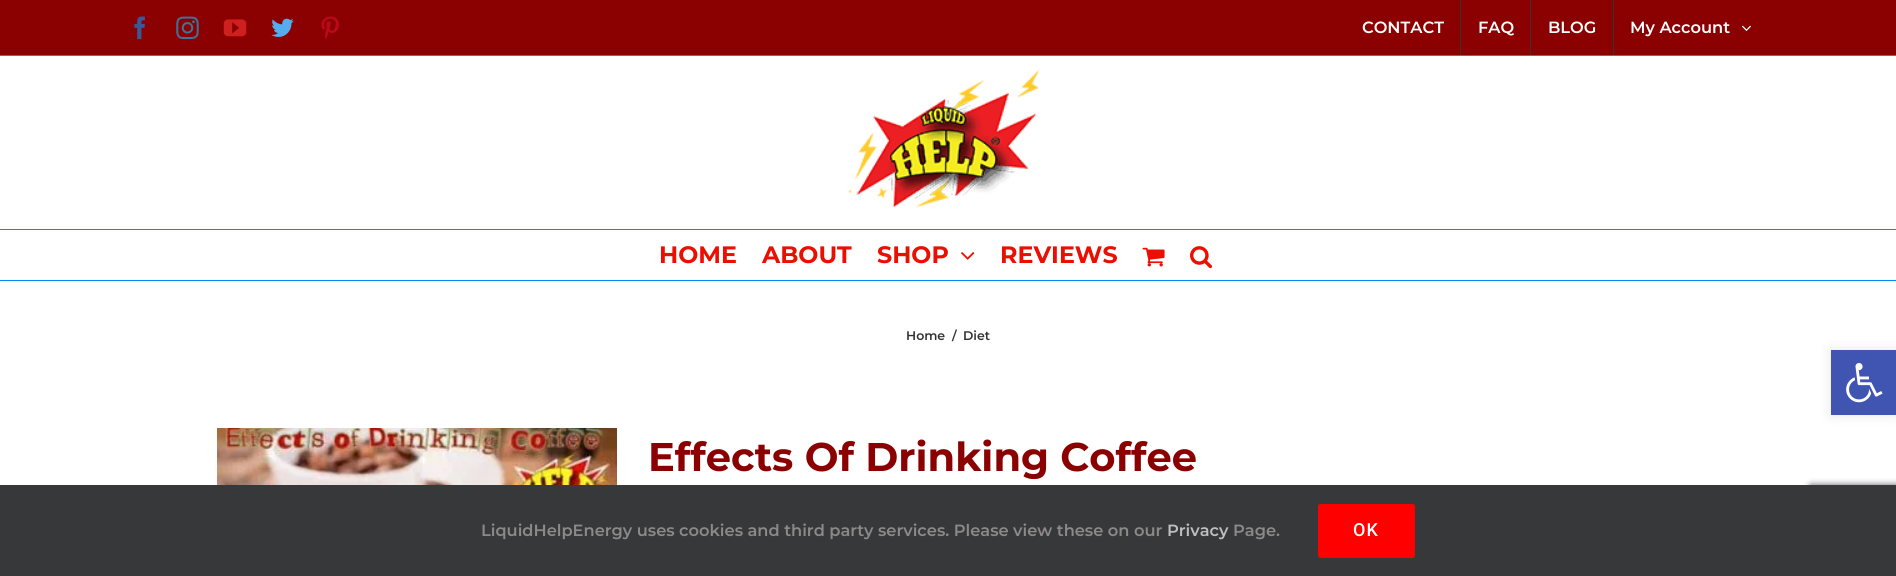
#include <cairo.h>
#include <math.h>
#include <stddef.h>

typedef struct { double x, y; const char *s; } line_t;

static void ink(cairo_t *ctx, unsigned color) {
    cairo_set_source_rgb(ctx, (color >> 16) / 255.0, (color >> 8 & 255) / 255.0, (color & 255) / 255.0);
}

static void write_spaced(cairo_t *ctx, double x, double y, const char *s, double letter, double word) {
    cairo_move_to(ctx, x, y);
    while (*s) {
        char ch[5] = {0};
        int n = 0;
        do ch[n++] = *s++; while ((*s & 0xC0) == 0x80);
        cairo_show_text(ctx, ch);
        cairo_rel_move_to(ctx, letter + word * (*ch == ' '), 0);
    }
}

static void round_path(cairo_t *ctx, double x, double y, double w, double h, double r) {
    cairo_new_sub_path(ctx);
    cairo_arc(ctx, x + w - r, y + h - r, r, 0, M_PI / 2);
    cairo_arc(ctx, x + r, y + h - r, r, M_PI / 2, M_PI);
    cairo_arc(ctx, x + r, y + r, r, M_PI, 1.5 * M_PI);
    cairo_arc(ctx, x + w - r, y + r, r, 1.5 * M_PI, 2 * M_PI);
    cairo_close_path(ctx);
}

static void blur_box(cairo_t *ctx, double x, double y, double w, double h, double r, double blur, double alpha) {
    cairo_push_group_with_content(ctx, CAIRO_CONTENT_ALPHA);
    cairo_set_operator(ctx, CAIRO_OPERATOR_SOURCE);
    for (int i = 15; i >= -15 && fmin(w, h) + blur * i / 3 > 0; i -= 2) {
        double e = blur * i / 6;
        cairo_set_source_rgba(ctx, 0, 0, 0, alpha * erfc((i - 1) / 8.5) / 2);
        round_path(ctx, x - e, y - e, w + 2 * e, h + 2 * e, fmax(0, fmin(r + e + blur * .6, fmin(w, h) / 2 + e)));
        cairo_fill(ctx);
    }
    cairo_pattern_t *soft = cairo_pop_group(ctx);
    cairo_mask(ctx, soft);
    cairo_pattern_destroy(soft);
}

static void paste(cairo_t *ctx, const char *path, double x, double y, double w, double h) {
    cairo_surface_t *image = cairo_image_surface_create_from_png(path);
    cairo_save(ctx);
    cairo_set_source_surface(ctx, image, x, y);
    cairo_rectangle(ctx, x, y, w, h);
    cairo_fill(ctx);
    cairo_restore(ctx);
    cairo_surface_destroy(image);
}

int main(void) {
    cairo_surface_t *surface = cairo_image_surface_create(CAIRO_FORMAT_RGB24, 1896, 576);
    cairo_t *ctx = cairo_create(surface);
    cairo_font_options_t *options = cairo_font_options_create();
    cairo_font_options_set_hint_metrics(options, CAIRO_HINT_METRICS_OFF);
    cairo_font_options_set_hint_style(options, CAIRO_HINT_STYLE_NONE);
    cairo_set_font_options(ctx, options);
    cairo_set_miter_limit(ctx, 4);
    ink(ctx, 0xFFFFFF);
    cairo_paint(ctx);
    ink(ctx, 0x8B0000);
    cairo_rectangle(ctx, 0, 0, 1896, 55);
    cairo_fill(ctx);
    ink(ctx, 0x008CF7);
    cairo_rectangle(ctx, 0, 55, 1896, 1);
    cairo_fill(ctx);
    paste(ctx, "media/1.png", 134, 16, 11, 24);
    paste(ctx, "media/2.png", 176, 16, 23, 24);
    paste(ctx, "media/3.png", 223, 19, 24, 18);
    paste(ctx, "media/4.png", 271, 18, 23, 19);
    paste(ctx, "media/5.png", 321, 16, 18, 23);
    cairo_select_font_face(ctx, "Montserrat SemiBold", CAIRO_FONT_SLANT_NORMAL, CAIRO_FONT_WEIGHT_NORMAL);
    cairo_set_font_size(ctx, 16.25);
    ink(ctx, 0xFFFFFF);
    cairo_move_to(ctx, 1362, 33);
    cairo_show_text(ctx, "CONTACT");
    ink(ctx, 0x333333);
    cairo_rectangle(ctx, 1460, 0, 1, 55);
    cairo_fill(ctx);
    ink(ctx, 0xFFFFFF);
    cairo_move_to(ctx, 1478, 33);
    cairo_show_text(ctx, "FAQ");
    ink(ctx, 0x333333);
    cairo_rectangle(ctx, 1530, 0, 1, 55);
    cairo_fill(ctx);
    ink(ctx, 0xFFFFFF);
    cairo_move_to(ctx, 1548, 33);
    cairo_show_text(ctx, "BLOG");
    ink(ctx, 0x333333);
    cairo_rectangle(ctx, 1613, 0, 1, 55);
    cairo_fill(ctx);
    ink(ctx, 0xFFFFFF);
    cairo_move_to(ctx, 1630, 33);
    cairo_show_text(ctx, "My Account");
    paste(ctx, "media/6.png", 1742, 25, 9, 6);
    ink(ctx, 0x008CF7);
    cairo_rectangle(ctx, 0, 229, 1896, 1);
    cairo_fill(ctx);
    paste(ctx, "media/7.png", 847, 69, 199, 139);
    cairo_rectangle(ctx, 0, 280, 1896, 1);
    cairo_fill(ctx);
    cairo_select_font_face(ctx, "Montserrat", CAIRO_FONT_SLANT_NORMAL, CAIRO_FONT_WEIGHT_BOLD);
    cairo_set_font_size(ctx, 23.75);
    ink(ctx, 0xEA0F00);
    {
        static const line_t items[] = {
            {659, 263, "HOME"},
            {762, 263, "ABOUT"},
            {877, 263, "SHOP"},
        };
        for (size_t i = 0; i < sizeof items / sizeof *items; i++) {
            cairo_move_to(ctx, items[i].x, items[i].y);
            cairo_show_text(ctx, items[i].s);
        }
    }
    paste(ctx, "media/8.png", 961, 252, 14, 8);
    cairo_move_to(ctx, 1000, 263);
    cairo_show_text(ctx, "REVIEWS");
    paste(ctx, "media/9.png", 1142, 247, 23, 20);
    paste(ctx, "media/10.png", 1190, 246, 22, 23);
    cairo_select_font_face(ctx, "Montserrat SemiBold", CAIRO_FONT_SLANT_NORMAL, CAIRO_FONT_WEIGHT_NORMAL);
    cairo_set_font_size(ctx, 12.5);
    ink(ctx, 0x333333);
    {
        static const line_t items[] = {
            {906, 340, "Home"},
            {952, 340, "/"},
            {963, 340, "Diet"},
        };
        for (size_t i = 0; i < sizeof items / sizeof *items; i++) {
            cairo_move_to(ctx, items[i].x, items[i].y);
            cairo_show_text(ctx, items[i].s);
        }
    }
    paste(ctx, "media/11.png", 217, 428, 400, 57);
    cairo_select_font_face(ctx, "Montserrat", CAIRO_FONT_SLANT_NORMAL, CAIRO_FONT_WEIGHT_BOLD);
    cairo_set_font_size(ctx, 40);
    ink(ctx, 0x8B0000);
    cairo_move_to(ctx, 648, 471);
    cairo_show_text(ctx, "Effects Of Drinking Coffee");
    ink(ctx, 0x000000);
    blur_box(ctx, 1831, 350, 65, 65, 0, 6, 0.1);
    ink(ctx, 0x4054B2);
    cairo_rectangle(ctx, 1831, 350, 65, 65);
    cairo_fill(ctx);
    paste(ctx, "media/12.png", 1846, 363, 37, 40);
    ink(ctx, 0x808080);
    blur_box(ctx, 1809, 484, 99, 75, 2.5, 3, 1);
    ink(ctx, 0x363839);
    cairo_rectangle(ctx, 0, 485, 1896, 91);
    cairo_fill(ctx);
    cairo_select_font_face(ctx, "Montserrat SemiBold", CAIRO_FONT_SLANT_NORMAL, CAIRO_FONT_WEIGHT_NORMAL);
    cairo_set_font_size(ctx, 16.25);
    ink(ctx, 0x8C8989);
    cairo_move_to(ctx, 481, 536);
    cairo_show_text(ctx, "LiquidHelpEnergy uses cookies and third party services. Please view these on our");
    ink(ctx, 0xBFBFBF);
    cairo_move_to(ctx, 1167, 536);
    cairo_show_text(ctx, "Privacy");
    ink(ctx, 0x8C8989);
    cairo_move_to(ctx, 1233, 536);
    cairo_show_text(ctx, "Page.");
    ink(ctx, 0xFE0000);
    round_path(ctx, 1318, 504, 97, 54, 2.5);
    cairo_fill(ctx);
    cairo_select_font_face(ctx, "Roboto Medium", CAIRO_FONT_SLANT_NORMAL, CAIRO_FONT_WEIGHT_NORMAL);
    cairo_set_font_size(ctx, 18);
    ink(ctx, 0xFFFFFF);
    write_spaced(ctx, 1353, 536, "OK", 1, 0);
    cairo_surface_write_to_png(surface, "image.png");
    cairo_font_options_destroy(options);
    cairo_destroy(ctx);
    cairo_surface_destroy(surface);
    return 0;
}
